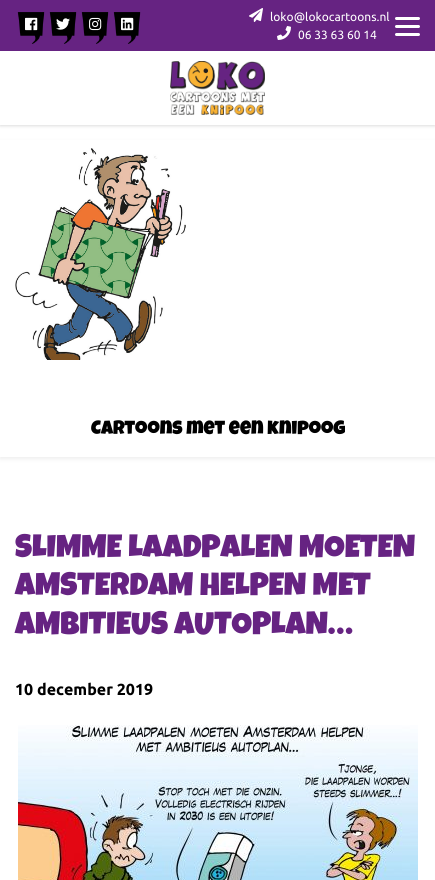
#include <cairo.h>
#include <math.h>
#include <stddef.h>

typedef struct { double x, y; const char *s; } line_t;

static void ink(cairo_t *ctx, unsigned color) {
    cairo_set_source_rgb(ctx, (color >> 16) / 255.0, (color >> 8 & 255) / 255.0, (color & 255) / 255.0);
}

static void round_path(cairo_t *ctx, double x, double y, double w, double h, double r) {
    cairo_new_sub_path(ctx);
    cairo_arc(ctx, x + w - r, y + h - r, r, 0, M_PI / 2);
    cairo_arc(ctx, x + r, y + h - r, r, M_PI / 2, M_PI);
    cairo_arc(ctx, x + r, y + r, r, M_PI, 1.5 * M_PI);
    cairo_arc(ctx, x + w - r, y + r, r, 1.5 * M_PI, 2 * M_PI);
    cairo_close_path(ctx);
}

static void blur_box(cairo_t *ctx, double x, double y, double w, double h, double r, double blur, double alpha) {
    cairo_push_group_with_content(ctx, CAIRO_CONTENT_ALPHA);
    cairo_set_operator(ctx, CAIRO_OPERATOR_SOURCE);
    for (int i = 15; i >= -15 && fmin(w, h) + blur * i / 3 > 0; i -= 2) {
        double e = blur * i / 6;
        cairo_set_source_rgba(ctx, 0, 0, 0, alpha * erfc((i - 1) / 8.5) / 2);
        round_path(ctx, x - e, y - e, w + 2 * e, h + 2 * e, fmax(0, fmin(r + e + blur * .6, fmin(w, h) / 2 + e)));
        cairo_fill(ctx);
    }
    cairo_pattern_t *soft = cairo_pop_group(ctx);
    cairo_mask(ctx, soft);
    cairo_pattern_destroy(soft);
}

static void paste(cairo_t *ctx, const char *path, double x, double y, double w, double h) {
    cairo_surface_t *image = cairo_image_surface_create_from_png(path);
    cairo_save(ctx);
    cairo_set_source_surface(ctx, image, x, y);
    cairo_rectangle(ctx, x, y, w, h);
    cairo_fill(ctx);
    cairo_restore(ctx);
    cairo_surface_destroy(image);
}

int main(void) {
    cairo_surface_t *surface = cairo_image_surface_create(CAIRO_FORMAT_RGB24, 435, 880);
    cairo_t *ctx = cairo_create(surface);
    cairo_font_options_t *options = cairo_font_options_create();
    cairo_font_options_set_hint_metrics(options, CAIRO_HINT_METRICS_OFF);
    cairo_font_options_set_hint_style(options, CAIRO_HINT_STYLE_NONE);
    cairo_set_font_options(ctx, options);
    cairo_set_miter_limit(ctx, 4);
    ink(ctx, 0xFFFFFF);
    cairo_paint(ctx);
    cairo_save(ctx);
    cairo_rectangle(ctx, 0, 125, 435, 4);
    cairo_clip(ctx);
    ink(ctx, 0xDDDDDD);
    blur_box(ctx, 0, 1, 435, 125, 0, 1.5, 1);
    cairo_restore(ctx);
    ink(ctx, 0x662382);
    cairo_rectangle(ctx, 0, 0, 435, 51);
    cairo_fill(ctx);
    paste(ctx, "media/1.png", 17, 12, 28, 32);
    paste(ctx, "media/2.png", 25, 17, 13, 14);
    paste(ctx, "media/1.png", 49, 12, 28, 32);
    paste(ctx, "media/3.png", 56, 18, 14, 12);
    paste(ctx, "media/1.png", 81, 12, 28, 32);
    paste(ctx, "media/4.png", 89, 17, 13, 14);
    paste(ctx, "media/1.png", 113, 12, 28, 32);
    paste(ctx, "media/5.png", 121, 17, 13, 14);
    paste(ctx, "media/6.png", 249, 8, 14, 14);
    cairo_select_font_face(ctx, "Ubuntu", CAIRO_FONT_SLANT_NORMAL, CAIRO_FONT_WEIGHT_NORMAL);
    cairo_set_font_size(ctx, 12);
    ink(ctx, 0xFFFFFF);
    cairo_move_to(ctx, 270, 21);
    cairo_show_text(ctx, "loko@lokocartoons.nl");
    paste(ctx, "media/7.png", 277, 26, 14, 14);
    cairo_move_to(ctx, 298, 39);
    cairo_show_text(ctx, "06 33 63 60 14");
    paste(ctx, "media/8.png", 170, 61, 95, 54);
    cairo_save(ctx);
    cairo_set_fill_rule(ctx, CAIRO_FILL_RULE_EVEN_ODD);
    cairo_new_path(ctx);
    cairo_move_to(ctx, 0, 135);
    cairo_line_to(ctx, 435, 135);
    cairo_line_to(ctx, 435, 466);
    cairo_line_to(ctx, 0, 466);
    cairo_close_path(ctx);
    cairo_move_to(ctx, 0, 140);
    cairo_line_to(ctx, 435, 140);
    cairo_line_to(ctx, 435, 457);
    cairo_line_to(ctx, 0, 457);
    cairo_close_path(ctx);
    cairo_clip(ctx);
    ink(ctx, 0xEEEEEE);
    blur_box(ctx, 0, 142, 435, 317, 0, 2, 1);
    cairo_restore(ctx);
    paste(ctx, "media/9.png", 15, 148, 171, 212);
    cairo_select_font_face(ctx, "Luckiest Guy", CAIRO_FONT_SLANT_NORMAL, CAIRO_FONT_WEIGHT_NORMAL);
    cairo_set_font_size(ctx, 19.25);
    ink(ctx, 0x000000);
    cairo_move_to(ctx, 91, 434);
    cairo_show_text(ctx, "Cartoons met een knipoog");
    cairo_set_font_size(ctx, 32);
    ink(ctx, 0x662382);
    {
        static const line_t items[] = {
            {15, 557, "SLIMME LAADPALEN MOETEN"},
            {15, 595, "AMSTERDAM HELPEN MET"},
            {15, 634, "AMBITIEUS AUTOPLAN…"},
        };
        for (size_t i = 0; i < sizeof items / sizeof *items; i++) {
            cairo_move_to(ctx, items[i].x, items[i].y);
            cairo_show_text(ctx, items[i].s);
        }
    }
    cairo_select_font_face(ctx, "Ubuntu", CAIRO_FONT_SLANT_NORMAL, CAIRO_FONT_WEIGHT_BOLD);
    cairo_set_font_size(ctx, 16);
    ink(ctx, 0x000000);
    cairo_move_to(ctx, 15, 695);
    cairo_show_text(ctx, "10 december 2019");
    paste(ctx, "media/10.png", 18, 725, 400, 155);
    ink(ctx, 0xFFFFFF);
    round_path(ctx, 395, 17, 25, 3, 1.5);
    cairo_fill(ctx);
    round_path(ctx, 395, 25, 25, 3, 1.5);
    cairo_fill(ctx);
    round_path(ctx, 395, 33, 25, 3, 1.5);
    cairo_fill(ctx);
    cairo_surface_write_to_png(surface, "image.png");
    cairo_font_options_destroy(options);
    cairo_destroy(ctx);
    cairo_surface_destroy(surface);
    return 0;
}
